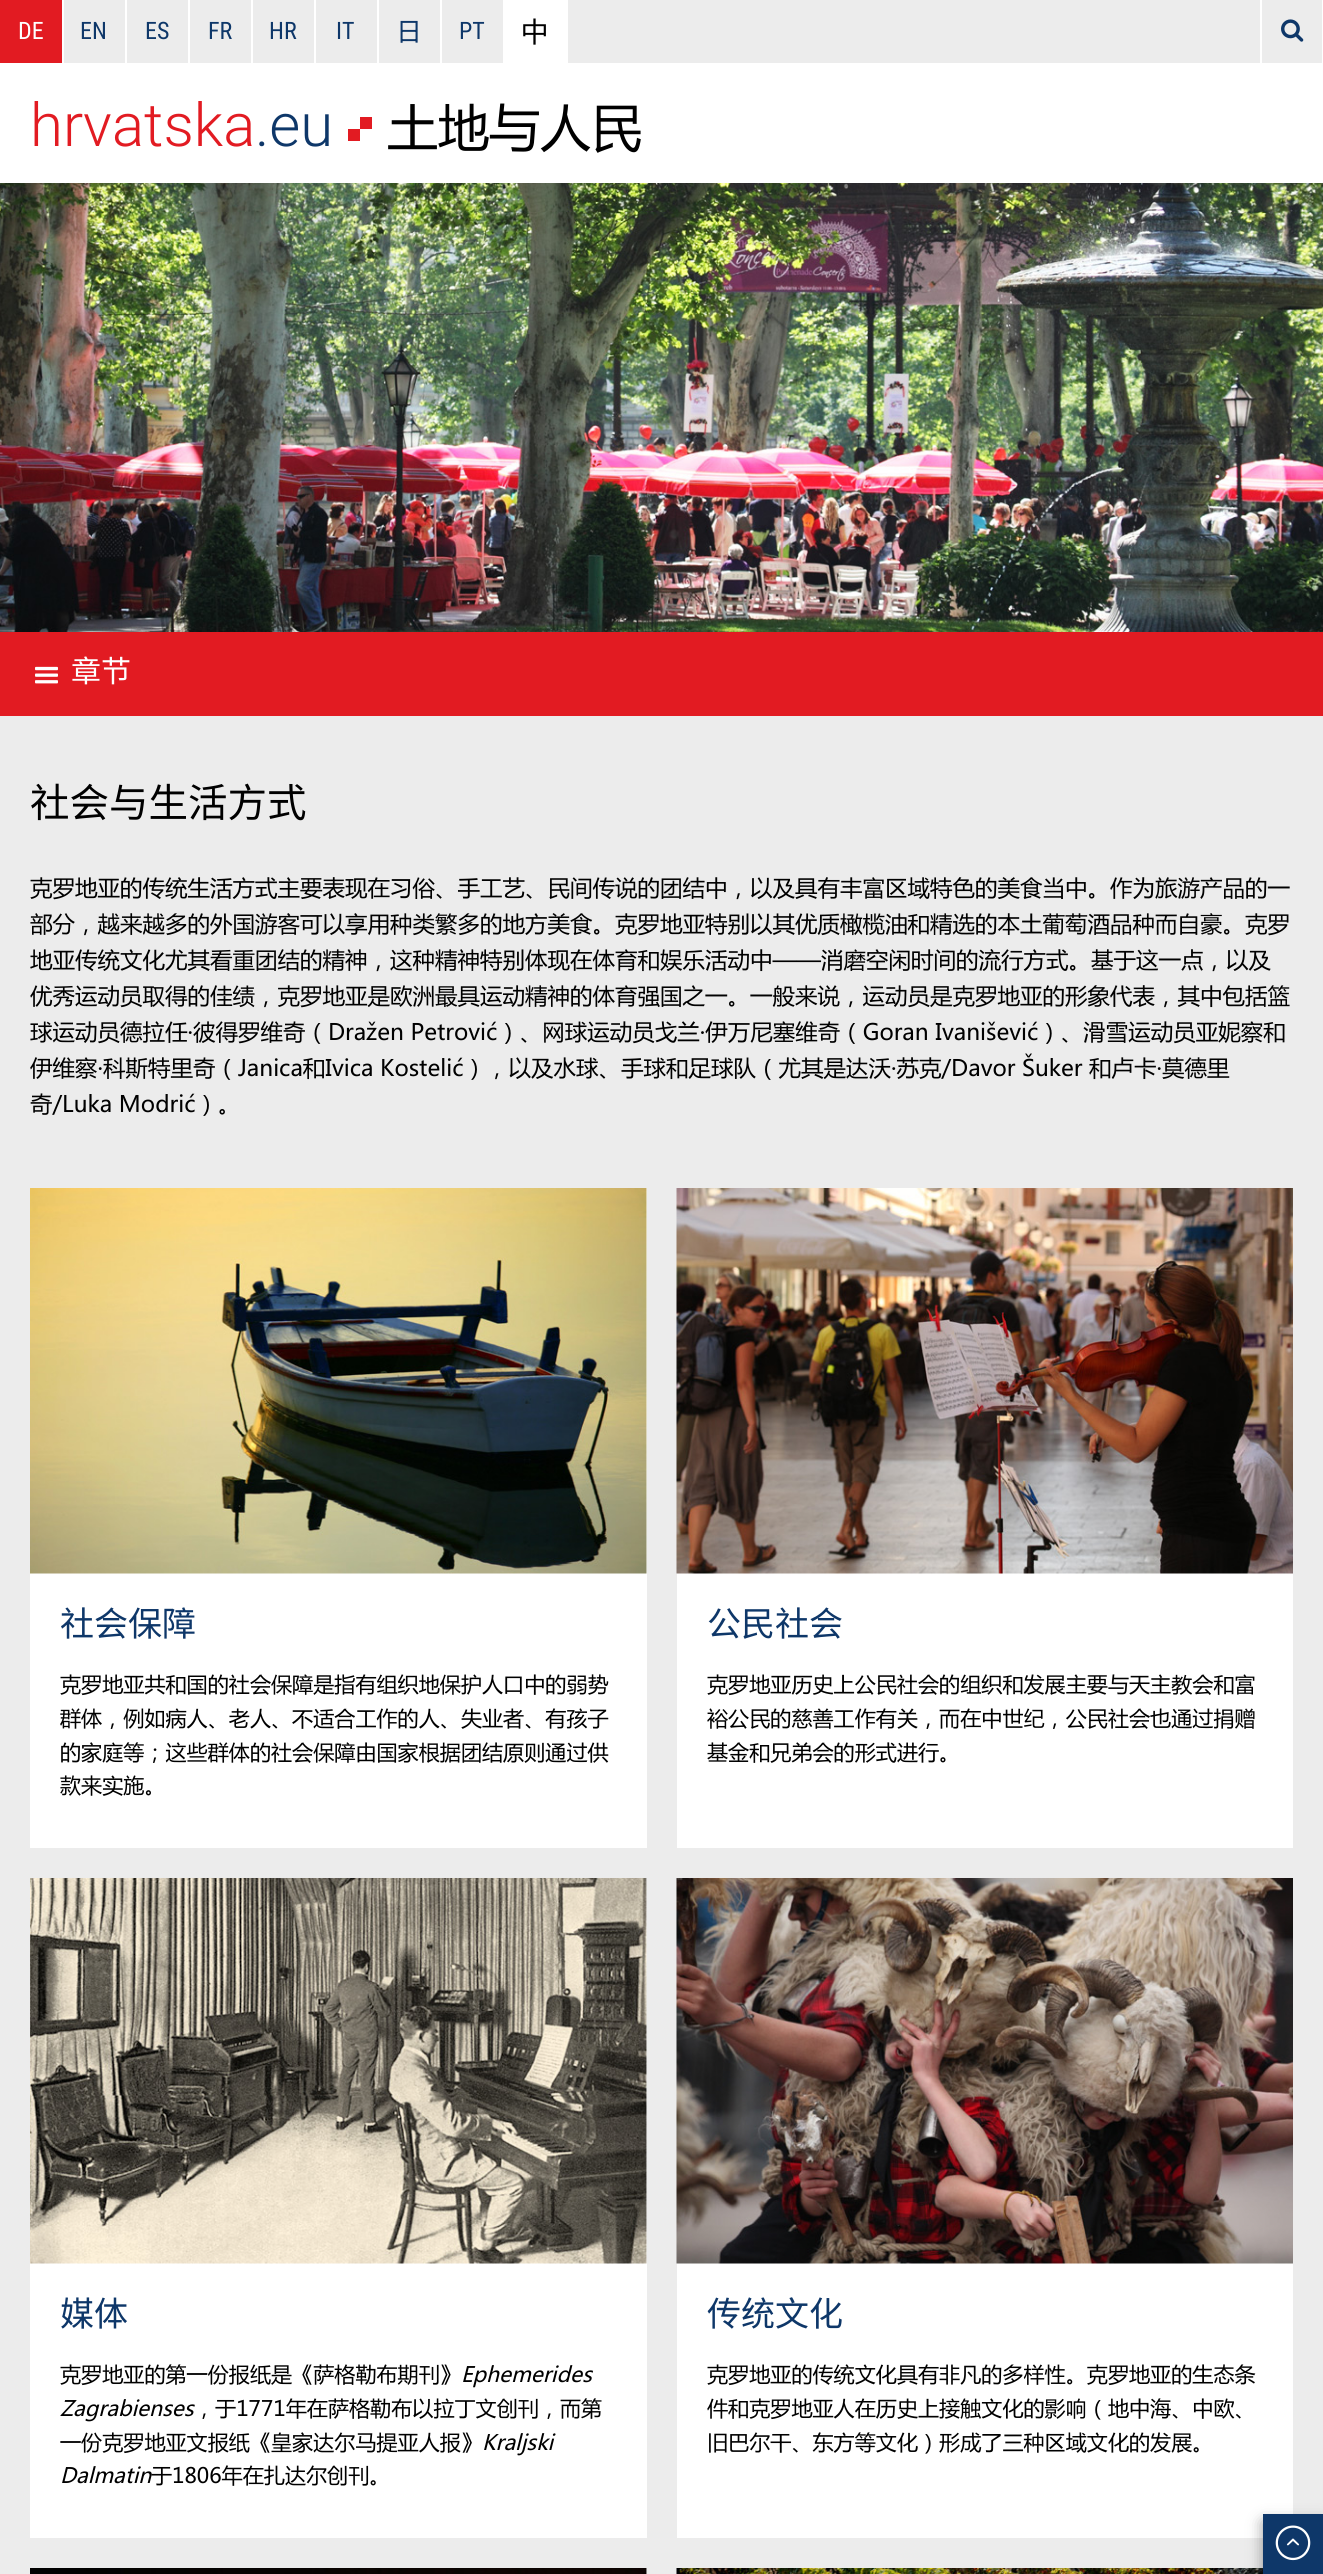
#include <cairo.h>
#include <math.h>
#include <stddef.h>

typedef struct { double x, y; const char *s; } line_t;

static void ink(cairo_t *ctx, unsigned color) {
    cairo_set_source_rgb(ctx, (color >> 16) / 255.0, (color >> 8 & 255) / 255.0, (color & 255) / 255.0);
}

static void round_path(cairo_t *ctx, double x, double y, double w, double h, double r) {
    cairo_new_sub_path(ctx);
    cairo_arc(ctx, x + w - r, y + h - r, r, 0, M_PI / 2);
    cairo_arc(ctx, x + r, y + h - r, r, M_PI / 2, M_PI);
    cairo_arc(ctx, x + r, y + r, r, M_PI, 1.5 * M_PI);
    cairo_arc(ctx, x + w - r, y + r, r, 1.5 * M_PI, 2 * M_PI);
    cairo_close_path(ctx);
}

static void blur_box(cairo_t *ctx, double x, double y, double w, double h, double r, double blur, double alpha) {
    cairo_push_group_with_content(ctx, CAIRO_CONTENT_ALPHA);
    cairo_set_operator(ctx, CAIRO_OPERATOR_SOURCE);
    for (int i = 15; i >= -15 && fmin(w, h) + blur * i / 3 > 0; i -= 2) {
        double e = blur * i / 6;
        cairo_set_source_rgba(ctx, 0, 0, 0, alpha * erfc((i - 1) / 8.5) / 2);
        round_path(ctx, x - e, y - e, w + 2 * e, h + 2 * e, fmax(0, fmin(r + e + blur * .6, fmin(w, h) / 2 + e)));
        cairo_fill(ctx);
    }
    cairo_pattern_t *soft = cairo_pop_group(ctx);
    cairo_mask(ctx, soft);
    cairo_pattern_destroy(soft);
}

static void paste(cairo_t *ctx, const char *path, double x, double y, double w, double h) {
    cairo_surface_t *image = cairo_image_surface_create_from_png(path);
    cairo_save(ctx);
    cairo_set_source_surface(ctx, image, x, y);
    cairo_rectangle(ctx, x, y, w, h);
    cairo_fill(ctx);
    cairo_restore(ctx);
    cairo_surface_destroy(image);
}

int main(void) {
    cairo_surface_t *surface = cairo_image_surface_create(CAIRO_FORMAT_RGB24, 1323, 2574);
    cairo_t *ctx = cairo_create(surface);
    cairo_font_options_t *options = cairo_font_options_create();
    cairo_font_options_set_hint_metrics(options, CAIRO_HINT_METRICS_OFF);
    cairo_font_options_set_hint_style(options, CAIRO_HINT_STYLE_NONE);
    cairo_set_font_options(ctx, options);
    cairo_set_miter_limit(ctx, 4);
    ink(ctx, 0xFFFFFF);
    cairo_paint(ctx);
    ink(ctx, 0xECECEC);
    cairo_rectangle(ctx, 64, 0, 1258, 63);
    cairo_fill(ctx);
    ink(ctx, 0xE21B22);
    cairo_rectangle(ctx, 0, 0, 62, 63);
    cairo_fill(ctx);
    cairo_select_font_face(ctx, "Roboto Condensed", CAIRO_FONT_SLANT_NORMAL, CAIRO_FONT_WEIGHT_NORMAL);
    cairo_set_font_size(ctx, 24);
    ink(ctx, 0xFFFFFF);
    cairo_move_to(ctx, 18, 39);
    cairo_show_text(ctx, "DE");
    cairo_rectangle(ctx, 125, 0, 2, 63);
    cairo_fill(ctx);
    ink(ctx, 0x0E3769);
    cairo_move_to(ctx, 80, 39);
    cairo_show_text(ctx, "EN");
    ink(ctx, 0xFFFFFF);
    cairo_rectangle(ctx, 188, 0, 2, 63);
    cairo_fill(ctx);
    ink(ctx, 0x0E3769);
    cairo_move_to(ctx, 145, 39);
    cairo_show_text(ctx, "ES");
    ink(ctx, 0xFFFFFF);
    cairo_rectangle(ctx, 251, 0, 2, 63);
    cairo_fill(ctx);
    ink(ctx, 0x0E3769);
    cairo_move_to(ctx, 208, 39);
    cairo_show_text(ctx, "FR");
    ink(ctx, 0xFFFFFF);
    cairo_rectangle(ctx, 314, 0, 2, 63);
    cairo_fill(ctx);
    ink(ctx, 0x0E3769);
    cairo_move_to(ctx, 269, 39);
    cairo_show_text(ctx, "HR");
    ink(ctx, 0xFFFFFF);
    cairo_rectangle(ctx, 377, 0, 2, 63);
    cairo_fill(ctx);
    ink(ctx, 0x0E3769);
    cairo_move_to(ctx, 336, 39);
    cairo_show_text(ctx, "IT");
    ink(ctx, 0xFFFFFF);
    cairo_rectangle(ctx, 440, 0, 2, 63);
    cairo_fill(ctx);
    cairo_select_font_face(ctx, "Noto Sans JP", CAIRO_FONT_SLANT_NORMAL, CAIRO_FONT_WEIGHT_NORMAL);
    cairo_set_font_size(ctx, 26);
    ink(ctx, 0x0E3769);
    cairo_move_to(ctx, 396, 41);
    cairo_show_text(ctx, "日");
    ink(ctx, 0xFFFFFF);
    cairo_rectangle(ctx, 503, 0, 65, 63);
    cairo_fill(ctx);
    cairo_select_font_face(ctx, "Roboto Condensed", CAIRO_FONT_SLANT_NORMAL, CAIRO_FONT_WEIGHT_NORMAL);
    cairo_set_font_size(ctx, 24);
    ink(ctx, 0x0E3769);
    cairo_move_to(ctx, 459, 39);
    cairo_show_text(ctx, "PT");
    cairo_select_font_face(ctx, "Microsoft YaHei", CAIRO_FONT_SLANT_NORMAL, CAIRO_FONT_WEIGHT_NORMAL);
    cairo_set_font_size(ctx, 27);
    ink(ctx, 0x000000);
    cairo_move_to(ctx, 521, 41);
    cairo_show_text(ctx, "中");
    ink(ctx, 0xFFFFFF);
    cairo_rectangle(ctx, 1260, 0, 2, 63);
    cairo_fill(ctx);
    paste(ctx, "media/1.png", 1281, 19, 23, 23);
    cairo_select_font_face(ctx, "Roboto Light", CAIRO_FONT_SLANT_NORMAL, CAIRO_FONT_WEIGHT_NORMAL);
    cairo_set_font_size(ctx, 60);
    ink(ctx, 0xE21B22);
    cairo_move_to(ctx, 30, 146);
    cairo_show_text(ctx, "hrvatska");
    ink(ctx, 0x0E3769);
    cairo_move_to(ctx, 255, 146);
    cairo_show_text(ctx, ".eu");
    ink(ctx, 0xE21B22);
    cairo_rectangle(ctx, 348, 129, 12, 12);
    cairo_fill(ctx);
    cairo_rectangle(ctx, 360, 117, 12, 12);
    cairo_fill(ctx);
    cairo_select_font_face(ctx, "Microsoft YaHei", CAIRO_FONT_SLANT_NORMAL, CAIRO_FONT_WEIGHT_NORMAL);
    cairo_set_font_size(ctx, 51);
    ink(ctx, 0x000000);
    cairo_move_to(ctx, 387, 146);
    cairo_show_text(ctx, "土地与人民");
    paste(ctx, "media/2.png", 0, 183, 1323, 449);
    ink(ctx, 0xE21B22);
    cairo_rectangle(ctx, 0, 632, 1323, 84);
    cairo_fill(ctx);
    paste(ctx, "media/3.png", 35, 666, 23, 18);
    cairo_select_font_face(ctx, "Noto Sans CJK SC", CAIRO_FONT_SLANT_NORMAL, CAIRO_FONT_WEIGHT_NORMAL);
    cairo_set_font_size(ctx, 30);
    ink(ctx, 0xFFFFFF);
    cairo_move_to(ctx, 71, 682);
    cairo_show_text(ctx, "章节");
    ink(ctx, 0xECECEC);
    cairo_rectangle(ctx, 0, 716, 1323, 1858);
    cairo_fill(ctx);
    cairo_set_font_size(ctx, 39.5);
    ink(ctx, 0x000000);
    cairo_move_to(ctx, 30, 817);
    cairo_show_text(ctx, "社会与生活方式");
    cairo_select_font_face(ctx, "Microsoft YaHei", CAIRO_FONT_SLANT_NORMAL, CAIRO_FONT_WEIGHT_NORMAL);
    cairo_set_font_size(ctx, 22.5);
    {
        static const line_t items[] = {
            {30, 896, "克罗地亚的传统生活方式主要表现在习俗、手工艺、民间传说的团结中，以及具有丰富区域特色的美食当中。作为旅游产品的一"},
            {30, 932, "部分，越来越多的外国游客可以享用种类繁多的地方美食。克罗地亚特别以其优质橄榄油和精选的本土葡萄酒品种而自豪。克罗"},
            {30, 968, "地亚传统文化尤其看重团结的精神，这种精神特别体现在体育和娱乐活动中——消磨空闲时间的流行方式。基于这一点，以及"},
            {30, 1004, "优秀运动员取得的佳绩，克罗地亚是欧洲最具运动精神的体育强国之一。一般来说，运动员是克罗地亚的形象代表，其中包括篮"},
            {30, 1040, "球运动员德拉任·彼得罗维奇（Dražen Petrović）、网球运动员戈兰·伊万尼塞维奇（Goran Ivanišević）、滑雪运动员亚妮察和"},
            {30, 1076, "伊维察·科斯特里奇（Janica和Ivica Kostelić），以及水球、手球和足球队（尤其是达沃·苏克/Davor Šuker 和卢卡·莫德里"},
            {30, 1112, "奇/Luka Modrić）。"},
        };
        for (size_t i = 0; i < sizeof items / sizeof *items; i++) {
            cairo_move_to(ctx, items[i].x, items[i].y);
            cairo_show_text(ctx, items[i].s);
        }
    }
    ink(ctx, 0xFFFFFF);
    cairo_rectangle(ctx, 30, 1188, 617, 660);
    cairo_fill(ctx);
    paste(ctx, "media/4.png", 30, 1188, 617, 386);
    cairo_select_font_face(ctx, "Noto Sans CJK SC", CAIRO_FONT_SLANT_NORMAL, CAIRO_FONT_WEIGHT_NORMAL);
    cairo_set_font_size(ctx, 34);
    ink(ctx, 0x0E3769);
    cairo_move_to(ctx, 60, 1636);
    cairo_show_text(ctx, "社会保障");
    cairo_select_font_face(ctx, "Microsoft YaHei", CAIRO_FONT_SLANT_NORMAL, CAIRO_FONT_WEIGHT_NORMAL);
    cairo_set_font_size(ctx, 21.1);
    ink(ctx, 0x000000);
    {
        static const line_t items[] = {
            {60, 1692, "克罗地亚共和国的社会保障是指有组织地保护人口中的弱势"},
            {60, 1726, "群体，例如病人、老人、不适合工作的人、失业者、有孩子"},
            {60, 1760, "的家庭等；这些群体的社会保障由国家根据团结原则通过供"},
            {60, 1793, "款来实施。"},
        };
        for (size_t i = 0; i < sizeof items / sizeof *items; i++) {
            cairo_move_to(ctx, items[i].x, items[i].y);
            cairo_show_text(ctx, items[i].s);
        }
    }
    ink(ctx, 0xFFFFFF);
    cairo_rectangle(ctx, 677, 1573, 616, 275);
    cairo_fill(ctx);
    paste(ctx, "media/5.png", 676, 1188, 617, 386);
    cairo_select_font_face(ctx, "Noto Sans CJK SC", CAIRO_FONT_SLANT_NORMAL, CAIRO_FONT_WEIGHT_NORMAL);
    cairo_set_font_size(ctx, 34);
    ink(ctx, 0x0E3769);
    cairo_move_to(ctx, 707, 1636);
    cairo_show_text(ctx, "公民社会");
    cairo_select_font_face(ctx, "Microsoft YaHei", CAIRO_FONT_SLANT_NORMAL, CAIRO_FONT_WEIGHT_NORMAL);
    cairo_set_font_size(ctx, 21.1);
    ink(ctx, 0x000000);
    {
        static const line_t items[] = {
            {707, 1692, "克罗地亚历史上公民社会的组织和发展主要与天主教会和富"},
            {707, 1726, "裕公民的慈善工作有关，而在中世纪，公民社会也通过捐赠"},
            {707, 1760, "基金和兄弟会的形式进行。"},
        };
        for (size_t i = 0; i < sizeof items / sizeof *items; i++) {
            cairo_move_to(ctx, items[i].x, items[i].y);
            cairo_show_text(ctx, items[i].s);
        }
    }
    ink(ctx, 0xFFFFFF);
    cairo_rectangle(ctx, 30, 1878, 617, 660);
    cairo_fill(ctx);
    paste(ctx, "media/6.png", 30, 1878, 617, 386);
    cairo_select_font_face(ctx, "Noto Sans CJK SC", CAIRO_FONT_SLANT_NORMAL, CAIRO_FONT_WEIGHT_NORMAL);
    cairo_set_font_size(ctx, 34);
    ink(ctx, 0x0E3769);
    cairo_move_to(ctx, 60, 2326);
    cairo_show_text(ctx, "媒体");
    cairo_select_font_face(ctx, "Microsoft YaHei", CAIRO_FONT_SLANT_NORMAL, CAIRO_FONT_WEIGHT_NORMAL);
    cairo_set_font_size(ctx, 21.1);
    ink(ctx, 0x000000);
    cairo_move_to(ctx, 60, 2382);
    cairo_show_text(ctx, "克罗地亚的第一份报纸是《萨格勒布期刊》");
    cairo_select_font_face(ctx, "Microsoft YaHei", CAIRO_FONT_SLANT_ITALIC, CAIRO_FONT_WEIGHT_NORMAL);
    cairo_move_to(ctx, 461, 2382);
    cairo_show_text(ctx, "Ephemerides");
    cairo_move_to(ctx, 60, 2416);
    cairo_show_text(ctx, "Zagrabienses");
    cairo_select_font_face(ctx, "Microsoft YaHei", CAIRO_FONT_SLANT_NORMAL, CAIRO_FONT_WEIGHT_NORMAL);
    cairo_move_to(ctx, 194, 2416);
    cairo_show_text(ctx, "，于1771年在萨格勒布以拉丁文创刊，而第");
    cairo_move_to(ctx, 60, 2450);
    cairo_show_text(ctx, "一份克罗地亚文报纸《皇家达尔马提亚人报》");
    cairo_select_font_face(ctx, "Microsoft YaHei", CAIRO_FONT_SLANT_ITALIC, CAIRO_FONT_WEIGHT_NORMAL);
    cairo_move_to(ctx, 482, 2450);
    cairo_show_text(ctx, "Kraljski");
    cairo_move_to(ctx, 60, 2483);
    cairo_show_text(ctx, "Dalmatin");
    cairo_select_font_face(ctx, "Microsoft YaHei", CAIRO_FONT_SLANT_NORMAL, CAIRO_FONT_WEIGHT_NORMAL);
    cairo_move_to(ctx, 151, 2483);
    cairo_show_text(ctx, "于1806年在扎达尔创刊。");
    ink(ctx, 0xFFFFFF);
    cairo_rectangle(ctx, 677, 2263, 616, 275);
    cairo_fill(ctx);
    paste(ctx, "media/7.png", 676, 1878, 617, 386);
    cairo_select_font_face(ctx, "Noto Sans CJK SC", CAIRO_FONT_SLANT_NORMAL, CAIRO_FONT_WEIGHT_NORMAL);
    cairo_set_font_size(ctx, 34);
    ink(ctx, 0x0E3769);
    cairo_move_to(ctx, 707, 2326);
    cairo_show_text(ctx, "传统文化");
    cairo_select_font_face(ctx, "Microsoft YaHei", CAIRO_FONT_SLANT_NORMAL, CAIRO_FONT_WEIGHT_NORMAL);
    cairo_set_font_size(ctx, 21.1);
    ink(ctx, 0x000000);
    {
        static const line_t items[] = {
            {707, 2382, "克罗地亚的传统文化具有非凡的多样性。克罗地亚的生态条"},
            {707, 2416, "件和克罗地亚人在历史上接触文化的影响（地中海、中欧、"},
            {707, 2450, "旧巴尔干、东方等文化）形成了三种区域文化的发展。"},
        };
        for (size_t i = 0; i < sizeof items / sizeof *items; i++) {
            cairo_move_to(ctx, items[i].x, items[i].y);
            cairo_show_text(ctx, items[i].s);
        }
    }
    ink(ctx, 0xFFFFFF);
    cairo_rectangle(ctx, 646, 2568, 1, 6);
    cairo_fill(ctx);
    paste(ctx, "media/8.png", 30, 2568, 617, 6);
    paste(ctx, "media/9.png", 676, 2568, 587, 6);
    ink(ctx, 0x000000);
    blur_box(ctx, 1263, 2522, 60, 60, 0, 7.5, 0.4);
    ink(ctx, 0x0E3769);
    cairo_rectangle(ctx, 1263, 2514, 60, 60);
    cairo_fill(ctx);
    paste(ctx, "media/10.png", 1275, 2525, 36, 36);
    cairo_surface_write_to_png(surface, "image.png");
    cairo_font_options_destroy(options);
    cairo_destroy(ctx);
    cairo_surface_destroy(surface);
    return 0;
}
